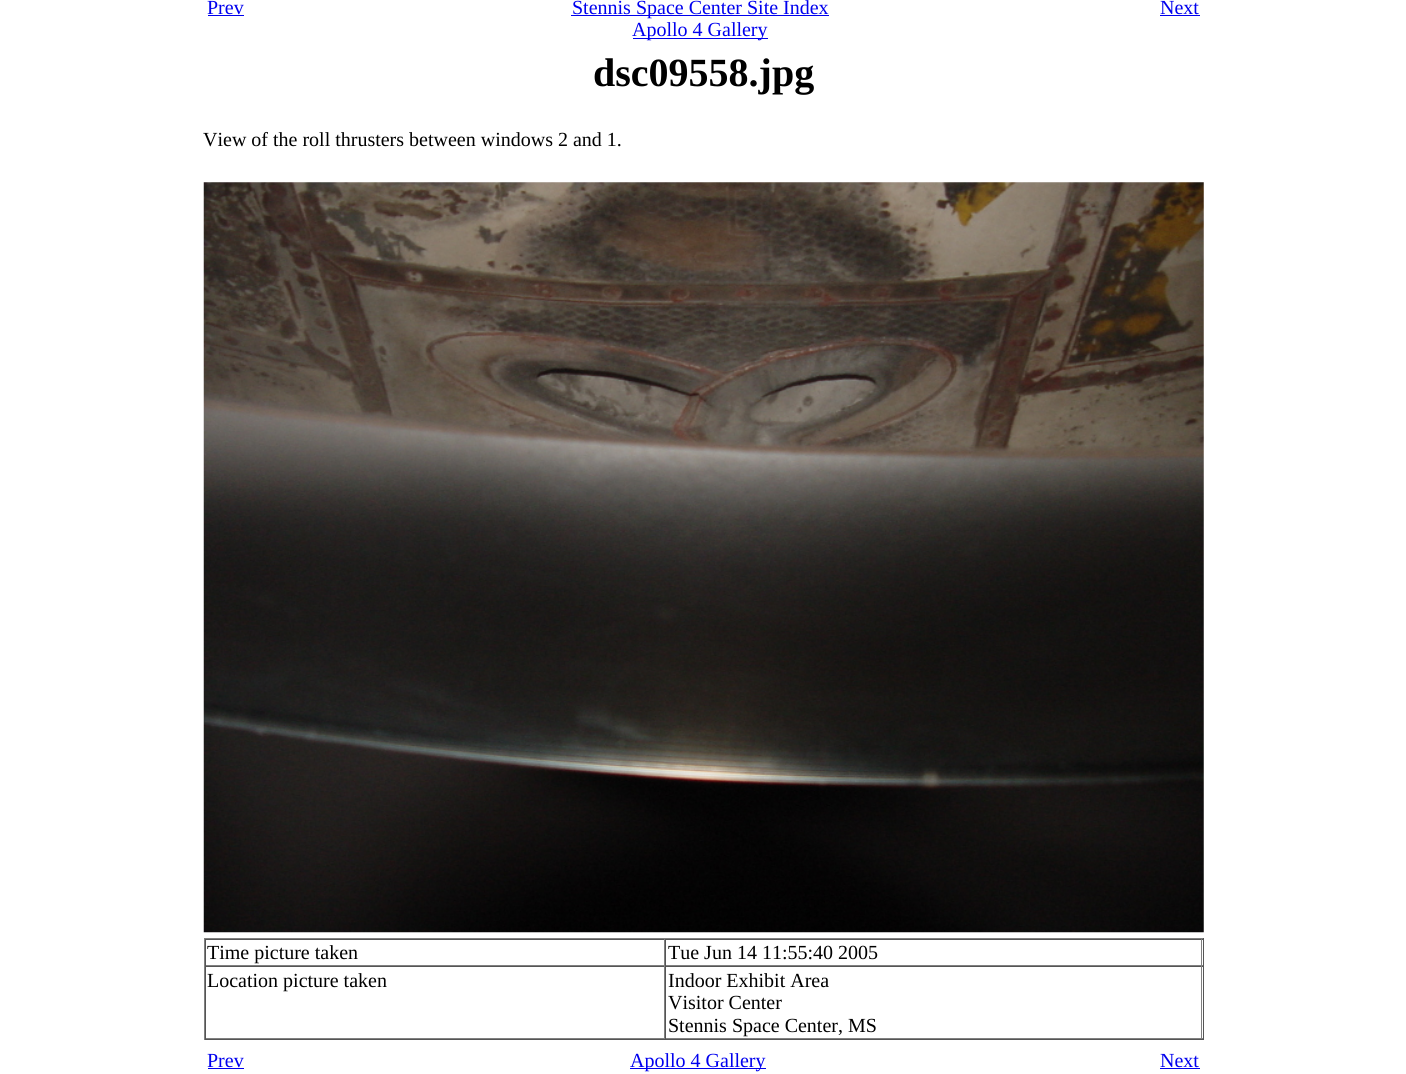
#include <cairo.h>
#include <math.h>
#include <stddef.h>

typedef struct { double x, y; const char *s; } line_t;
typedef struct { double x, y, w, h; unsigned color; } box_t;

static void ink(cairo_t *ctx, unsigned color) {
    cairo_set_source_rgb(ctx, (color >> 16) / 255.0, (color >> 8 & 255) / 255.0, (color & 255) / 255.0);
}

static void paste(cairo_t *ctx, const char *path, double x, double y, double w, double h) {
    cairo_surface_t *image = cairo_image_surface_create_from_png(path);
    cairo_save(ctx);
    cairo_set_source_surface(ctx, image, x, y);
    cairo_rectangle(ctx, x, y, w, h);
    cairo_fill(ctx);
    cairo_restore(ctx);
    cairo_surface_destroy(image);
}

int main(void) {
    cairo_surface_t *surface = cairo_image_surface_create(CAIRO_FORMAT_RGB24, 1406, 1074);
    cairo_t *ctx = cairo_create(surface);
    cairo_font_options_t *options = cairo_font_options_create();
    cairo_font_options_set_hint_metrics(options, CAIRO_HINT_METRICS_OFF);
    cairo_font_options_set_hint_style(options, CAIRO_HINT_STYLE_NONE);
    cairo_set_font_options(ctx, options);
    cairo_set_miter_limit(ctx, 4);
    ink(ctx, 0xFFFFFF);
    cairo_paint(ctx);
    cairo_select_font_face(ctx, "Liberation Serif", CAIRO_FONT_SLANT_NORMAL, CAIRO_FONT_WEIGHT_NORMAL);
    cairo_set_font_size(ctx, 20);
    ink(ctx, 0x0000EE);
    cairo_move_to(ctx, 207, 14);
    cairo_show_text(ctx, "Prev");
    cairo_rectangle(ctx, 208, 15, 36, 1);
    cairo_fill(ctx);
    cairo_rectangle(ctx, 571, 15, 258, 1);
    cairo_fill(ctx);
    cairo_move_to(ctx, 572, 14);
    cairo_show_text(ctx, "Stennis Space Center Site Index");
    cairo_rectangle(ctx, 633, 38, 135, 1);
    cairo_fill(ctx);
    cairo_move_to(ctx, 632, 36);
    cairo_show_text(ctx, "Apollo 4 Gallery");
    cairo_move_to(ctx, 1160, 14);
    cairo_show_text(ctx, "Next");
    cairo_rectangle(ctx, 1160, 15, 40, 1);
    cairo_fill(ctx);
    cairo_select_font_face(ctx, "Liberation Serif", CAIRO_FONT_SLANT_NORMAL, CAIRO_FONT_WEIGHT_BOLD);
    cairo_set_font_size(ctx, 40);
    ink(ctx, 0x000000);
    cairo_move_to(ctx, 593, 86);
    cairo_show_text(ctx, "dsc09558.jpg");
    cairo_select_font_face(ctx, "Liberation Serif", CAIRO_FONT_SLANT_NORMAL, CAIRO_FONT_WEIGHT_NORMAL);
    cairo_set_font_size(ctx, 20);
    cairo_move_to(ctx, 203, 146);
    cairo_show_text(ctx, "View of the roll thrusters between windows 2 and 1.");
    paste(ctx, "media/1.png", 203, 182, 1001, 751);
    {
        static const box_t items[] = {
            {204, 938, 1000, 1, 0x808080},
            {1203, 938, 1, 102, 0x555555},
            {204, 1039, 1000, 1, 0x555555},
            {204, 938, 1, 102, 0x808080},
            {205, 939, 998, 1, 0x555555},
            {664, 939, 1, 27, 0x808080},
            {205, 965, 460, 1, 0x808080},
            {205, 939, 1, 27, 0x555555},
        };
        for (size_t i = 0; i < sizeof items / sizeof *items; i++) {
            ink(ctx, items[i].color);
            cairo_rectangle(ctx, items[i].x, items[i].y, items[i].w, items[i].h);
            cairo_fill(ctx);
        }
    }
    ink(ctx, 0x000000);
    cairo_move_to(ctx, 207, 959);
    cairo_show_text(ctx, "Time picture taken");
    {
        static const box_t items[] = {
            {1201, 939, 1, 27, 0x808080},
            {665, 965, 538, 1, 0x808080},
            {665, 939, 1, 27, 0x555555},
        };
        for (size_t i = 0; i < sizeof items / sizeof *items; i++) {
            ink(ctx, items[i].color);
            cairo_rectangle(ctx, items[i].x, items[i].y, items[i].w, items[i].h);
            cairo_fill(ctx);
        }
    }
    ink(ctx, 0x000000);
    cairo_move_to(ctx, 668, 959);
    cairo_show_text(ctx, "Tue Jun 14 11:55:40 2005");
    {
        static const box_t items[] = {
            {205, 966, 998, 1, 0x555555},
            {664, 966, 1, 73, 0x808080},
            {205, 1038, 460, 1, 0x808080},
            {205, 966, 1, 73, 0x555555},
        };
        for (size_t i = 0; i < sizeof items / sizeof *items; i++) {
            ink(ctx, items[i].color);
            cairo_rectangle(ctx, items[i].x, items[i].y, items[i].w, items[i].h);
            cairo_fill(ctx);
        }
    }
    ink(ctx, 0x000000);
    cairo_move_to(ctx, 207, 987);
    cairo_show_text(ctx, "Location picture taken");
    {
        static const box_t items[] = {
            {1201, 966, 1, 73, 0x808080},
            {665, 1038, 538, 1, 0x808080},
            {665, 966, 1, 73, 0x555555},
        };
        for (size_t i = 0; i < sizeof items / sizeof *items; i++) {
            ink(ctx, items[i].color);
            cairo_rectangle(ctx, items[i].x, items[i].y, items[i].w, items[i].h);
            cairo_fill(ctx);
        }
    }
    ink(ctx, 0x000000);
    {
        static const line_t items[] = {
            {668, 987, "Indoor Exhibit Area"},
            {668, 1009, "Visitor Center"},
            {668, 1032, "Stennis Space Center, MS"},
        };
        for (size_t i = 0; i < sizeof items / sizeof *items; i++) {
            cairo_move_to(ctx, items[i].x, items[i].y);
            cairo_show_text(ctx, items[i].s);
        }
    }
    ink(ctx, 0x0000EE);
    cairo_move_to(ctx, 207, 1067);
    cairo_show_text(ctx, "Prev");
    cairo_rectangle(ctx, 208, 1068, 36, 1);
    cairo_fill(ctx);
    cairo_rectangle(ctx, 630, 1068, 136, 1);
    cairo_fill(ctx);
    cairo_move_to(ctx, 630, 1067);
    cairo_show_text(ctx, "Apollo 4 Gallery");
    cairo_move_to(ctx, 1160, 1067);
    cairo_show_text(ctx, "Next");
    cairo_rectangle(ctx, 1160, 1068, 40, 1);
    cairo_fill(ctx);
    cairo_surface_write_to_png(surface, "image.png");
    cairo_font_options_destroy(options);
    cairo_destroy(ctx);
    cairo_surface_destroy(surface);
    return 0;
}
